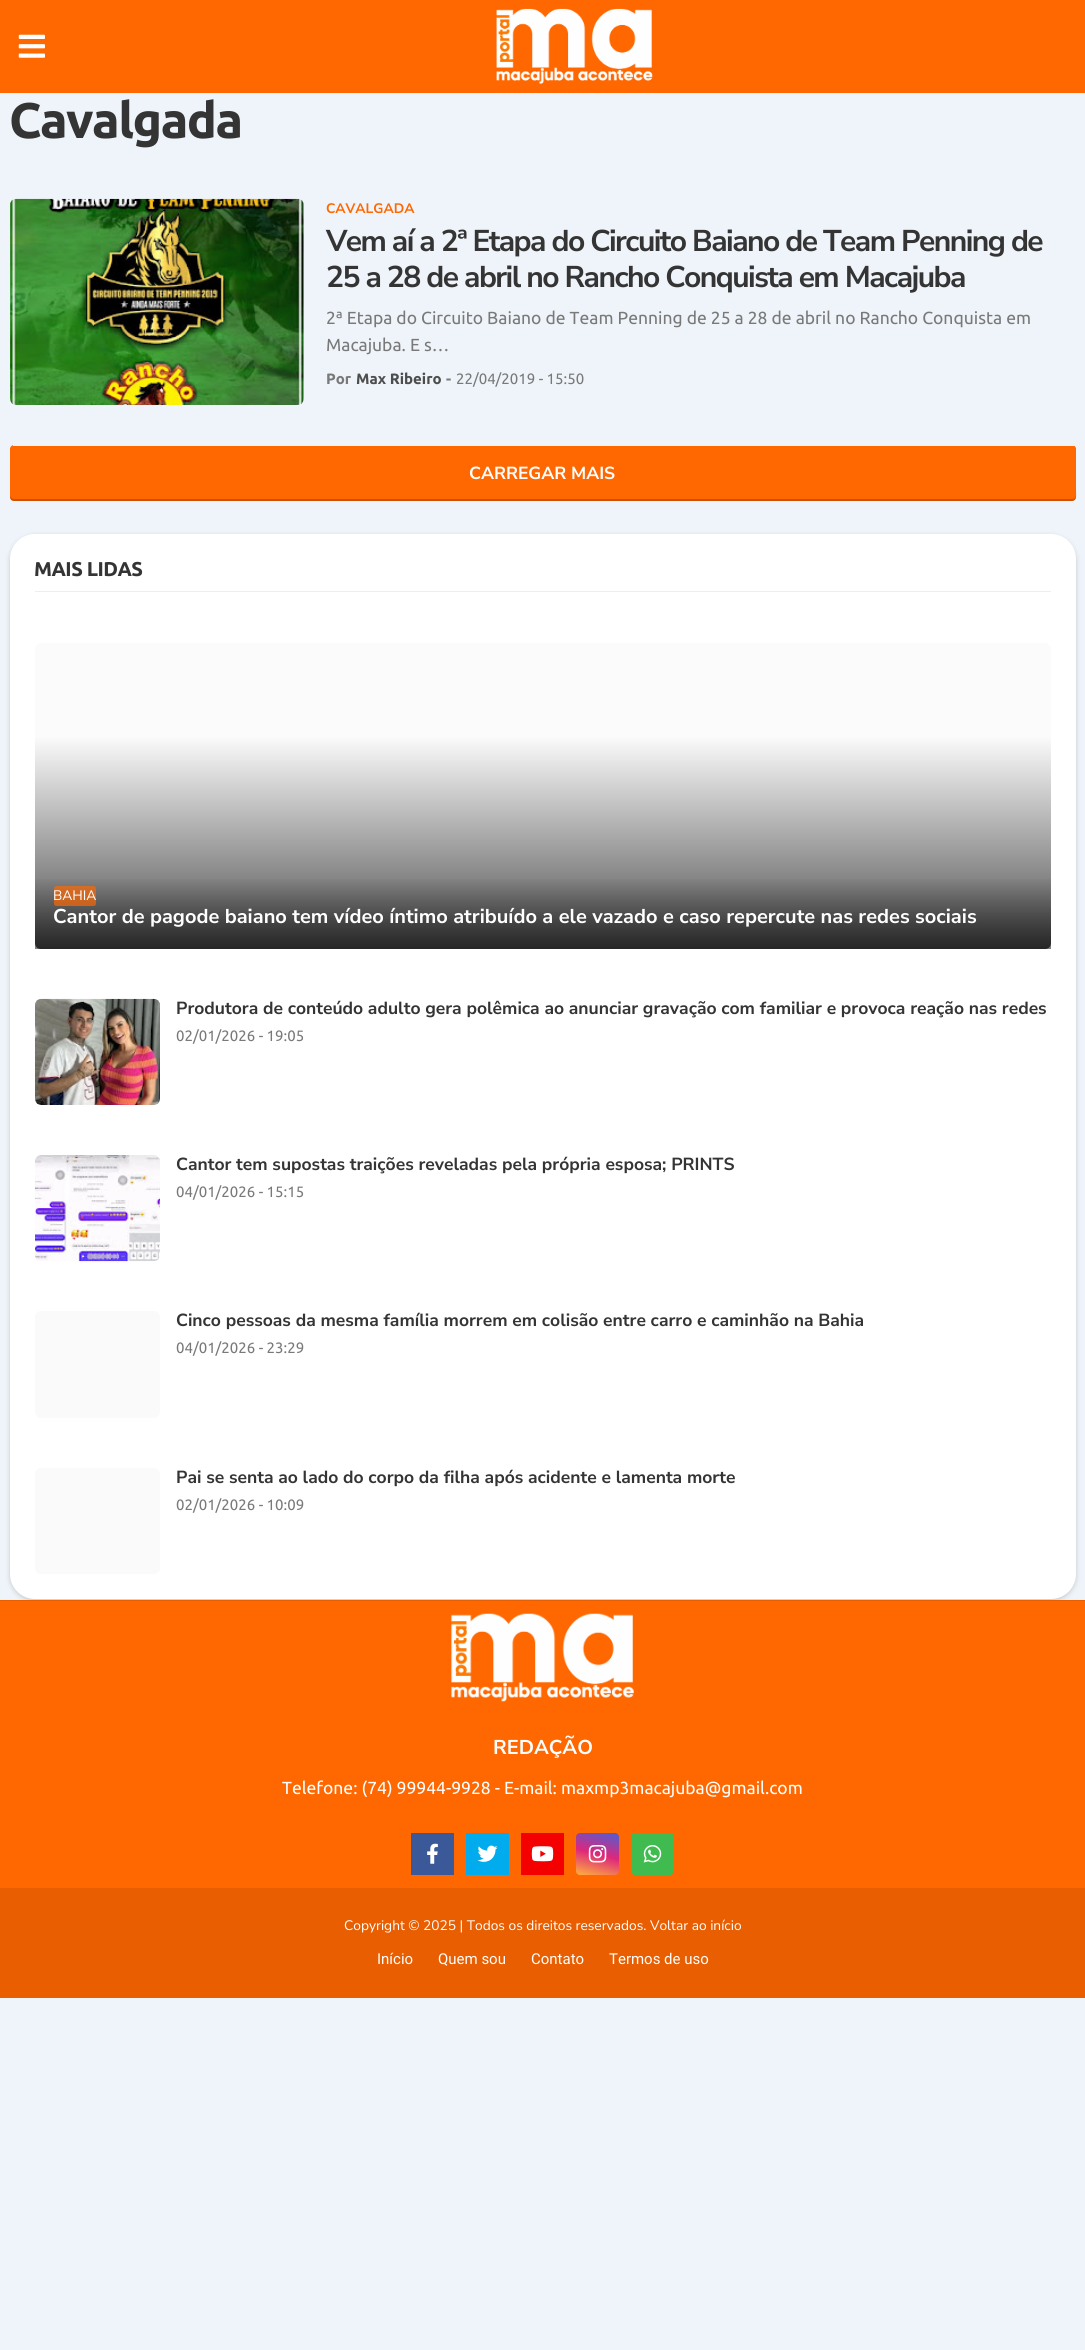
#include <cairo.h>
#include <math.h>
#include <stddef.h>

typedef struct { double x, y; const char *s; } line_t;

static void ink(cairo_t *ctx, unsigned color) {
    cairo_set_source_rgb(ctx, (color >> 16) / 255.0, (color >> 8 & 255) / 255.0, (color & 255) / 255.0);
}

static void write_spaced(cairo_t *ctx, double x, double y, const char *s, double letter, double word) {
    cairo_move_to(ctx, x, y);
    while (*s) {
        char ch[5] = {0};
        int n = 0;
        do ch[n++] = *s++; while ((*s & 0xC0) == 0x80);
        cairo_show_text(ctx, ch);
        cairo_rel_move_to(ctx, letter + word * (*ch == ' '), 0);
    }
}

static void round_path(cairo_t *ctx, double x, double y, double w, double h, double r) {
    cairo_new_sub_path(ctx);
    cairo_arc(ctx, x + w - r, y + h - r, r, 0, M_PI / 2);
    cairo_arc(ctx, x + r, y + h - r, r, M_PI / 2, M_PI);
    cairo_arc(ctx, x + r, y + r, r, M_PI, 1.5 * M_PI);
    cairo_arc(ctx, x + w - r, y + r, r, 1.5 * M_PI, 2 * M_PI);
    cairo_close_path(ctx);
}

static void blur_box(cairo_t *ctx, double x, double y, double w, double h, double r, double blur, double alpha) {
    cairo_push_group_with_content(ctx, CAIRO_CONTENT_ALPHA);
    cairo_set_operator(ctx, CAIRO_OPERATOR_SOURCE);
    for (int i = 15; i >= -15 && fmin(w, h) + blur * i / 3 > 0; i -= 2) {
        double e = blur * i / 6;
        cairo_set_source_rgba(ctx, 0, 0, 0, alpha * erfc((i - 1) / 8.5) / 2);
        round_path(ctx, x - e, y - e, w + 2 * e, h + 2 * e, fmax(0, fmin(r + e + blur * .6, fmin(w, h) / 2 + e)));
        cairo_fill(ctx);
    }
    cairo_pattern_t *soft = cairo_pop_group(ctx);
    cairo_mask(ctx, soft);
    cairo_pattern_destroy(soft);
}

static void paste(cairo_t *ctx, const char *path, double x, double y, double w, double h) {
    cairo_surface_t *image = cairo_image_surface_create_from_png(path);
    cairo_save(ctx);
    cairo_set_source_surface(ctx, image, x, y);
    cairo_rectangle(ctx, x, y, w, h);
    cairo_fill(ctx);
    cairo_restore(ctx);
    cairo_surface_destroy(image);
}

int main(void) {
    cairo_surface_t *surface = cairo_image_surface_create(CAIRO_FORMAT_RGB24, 1085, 2350);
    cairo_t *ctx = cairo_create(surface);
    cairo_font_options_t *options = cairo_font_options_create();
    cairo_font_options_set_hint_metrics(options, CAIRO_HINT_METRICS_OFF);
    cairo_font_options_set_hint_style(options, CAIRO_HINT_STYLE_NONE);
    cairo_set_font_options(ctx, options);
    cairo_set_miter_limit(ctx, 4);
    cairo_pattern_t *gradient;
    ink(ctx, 0xEEF4F9);
    cairo_paint(ctx);
    ink(ctx, 0xFF6700);
    cairo_rectangle(ctx, 0, 0, 1085, 93);
    cairo_fill(ctx);
    paste(ctx, "media/1.png", 18, 34, 27, 24);
    paste(ctx, "media/2.png", 496, 8, 157, 76);
    ink(ctx, 0xF2F2F2);
    cairo_rectangle(ctx, 10, 173, 1066, 1);
    cairo_fill(ctx);
    cairo_select_font_face(ctx, "Ubuntu", CAIRO_FONT_SLANT_NORMAL, CAIRO_FONT_WEIGHT_BOLD);
    cairo_set_font_size(ctx, 50);
    ink(ctx, 0x343434);
    write_spaced(ctx, 9, 138, "Cavalgada", -1.5, 0);
    ink(ctx, 0xEAF0F4);
    round_path(ctx, 10, 199, 294, 206, 6);
    cairo_fill(ctx);
    paste(ctx, "media/3.png", 10, 198, 294, 207);
    cairo_select_font_face(ctx, "Nunito Sans", CAIRO_FONT_SLANT_NORMAL, CAIRO_FONT_WEIGHT_BOLD);
    cairo_set_font_size(ctx, 13.75);
    ink(ctx, 0xFF6700);
    cairo_move_to(ctx, 326, 213);
    cairo_show_text(ctx, "CAVALGADA");
    cairo_set_font_size(ctx, 30);
    ink(ctx, 0x343434);
    write_spaced(ctx, 326, 251, "Vem aí a 2ª Etapa do Circuito Baiano de Team Penning de", -1.55, 0);
    write_spaced(ctx, 326, 287, "25 a 28 de abril no Rancho Conquista em Macajuba", -1.55, 0);
    cairo_select_font_face(ctx, "Ubuntu", CAIRO_FONT_SLANT_NORMAL, CAIRO_FONT_WEIGHT_NORMAL);
    cairo_set_font_size(ctx, 17.5);
    ink(ctx, 0x797979);
    cairo_move_to(ctx, 326, 324);
    cairo_show_text(ctx, "2ª Etapa do Circuito Baiano de Team Penning de 25 a 28 de abril no Rancho Conquista em");
    cairo_move_to(ctx, 326, 351);
    cairo_show_text(ctx, "Macajuba. E s…");
    cairo_select_font_face(ctx, "Ubuntu", CAIRO_FONT_SLANT_NORMAL, CAIRO_FONT_WEIGHT_BOLD);
    cairo_set_font_size(ctx, 15);
    cairo_move_to(ctx, 326, 384);
    cairo_show_text(ctx, "Por");
    ink(ctx, 0x4D4D4D);
    cairo_move_to(ctx, 356, 384);
    cairo_show_text(ctx, "Max Ribeiro");
    ink(ctx, 0x797979);
    cairo_move_to(ctx, 446, 384);
    cairo_show_text(ctx, "-");
    cairo_select_font_face(ctx, "Ubuntu", CAIRO_FONT_SLANT_NORMAL, CAIRO_FONT_WEIGHT_NORMAL);
    cairo_move_to(ctx, 456, 384);
    cairo_show_text(ctx, "22/04/2019 - 15:50");
    ink(ctx, 0xFF6700);
    round_path(ctx, 10, 445, 1066, 56, 4);
    cairo_fill(ctx);
    cairo_set_source_rgba(ctx, 0, 0, 0, 0.2);
    cairo_new_path(ctx);
    cairo_move_to(ctx, 10, 495);
    cairo_curve_to(ctx, 10, 498, 10, 501, 14, 501);
    cairo_line_to(ctx, 1072, 501);
    cairo_curve_to(ctx, 1078, 501, 1076, 492, 1076, 489);
    cairo_line_to(ctx, 1076, 448);
    cairo_line_to(ctx, 1076, 495);
    cairo_curve_to(ctx, 1076, 497, 1075, 499, 1072, 499);
    cairo_line_to(ctx, 14, 499);
    cairo_curve_to(ctx, 12, 499, 10, 497, 10, 495);
    cairo_close_path(ctx);
    cairo_fill(ctx);
    ink(ctx, 0xF2F2F2);
    cairo_rectangle(ctx, 13, 445, 1062, 1);
    cairo_fill(ctx);
    cairo_select_font_face(ctx, "Nunito Sans", CAIRO_FONT_SLANT_NORMAL, CAIRO_FONT_WEIGHT_BOLD);
    cairo_set_font_size(ctx, 17.5);
    ink(ctx, 0xFFFFFF);
    cairo_move_to(ctx, 469, 479);
    cairo_show_text(ctx, "CARREGAR MAIS");
    ink(ctx, 0x000000);
    blur_box(ctx, 10, 536, 1066, 1065, 25, 2.5, 0.18);
    ink(ctx, 0xFFFFFF);
    round_path(ctx, 10, 534, 1066, 1065, 25);
    cairo_fill(ctx);
    ink(ctx, 0xEEEEEE);
    cairo_rectangle(ctx, 35, 591, 1016, 1);
    cairo_fill(ctx);
    cairo_select_font_face(ctx, "Ubuntu", CAIRO_FONT_SLANT_NORMAL, CAIRO_FONT_WEIGHT_BOLD);
    cairo_set_font_size(ctx, 20);
    ink(ctx, 0x343434);
    write_spaced(ctx, 34, 576, "MAIS LIDAS", -0.5, 0);
    ink(ctx, 0xFBFBFB);
    round_path(ctx, 35, 643, 1016, 306, 6);
    cairo_fill(ctx);
    gradient = cairo_pattern_create_linear(543, 735, 543, 949);
    cairo_pattern_add_color_stop_rgba(gradient, 0, 0.988, 0.988, 0.988, 1);
    cairo_pattern_add_color_stop_rgba(gradient, 1, 0.298, 0.298, 0.298, 1);
    cairo_set_source(ctx, gradient);
    cairo_pattern_destroy(gradient);
    cairo_new_path(ctx);
    cairo_move_to(ctx, 35, 735);
    cairo_line_to(ctx, 1051, 735);
    cairo_line_to(ctx, 1051, 943);
    cairo_curve_to(ctx, 1051, 946.5, 1048.5, 949, 1045, 949);
    cairo_line_to(ctx, 41, 949);
    cairo_curve_to(ctx, 37.5, 949, 35, 946.5, 35, 943);
    cairo_close_path(ctx);
    cairo_fill(ctx);
    gradient = cairo_pattern_create_linear(543, 868, 543, 949);
    cairo_pattern_add_color_stop_rgba(gradient, 0.1, 0, 0, 0, 0);
    cairo_pattern_add_color_stop_rgba(gradient, 1, 0, 0, 0, 0.5);
    cairo_set_source(ctx, gradient);
    cairo_pattern_destroy(gradient);
    cairo_rectangle(ctx, 35, 879, 1016, 70);
    cairo_fill(ctx);
    cairo_set_source_rgba(ctx, 1, 0.404, 0, 0.67);
    round_path(ctx, 54, 886, 42, 20, 2.5);
    cairo_fill(ctx);
    cairo_select_font_face(ctx, "Nunito Sans", CAIRO_FONT_SLANT_NORMAL, CAIRO_FONT_WEIGHT_NORMAL);
    cairo_set_font_size(ctx, 13.75);
    ink(ctx, 0xFFFFFF);
    cairo_move_to(ctx, 53, 900);
    cairo_show_text(ctx, "BAHIA");
    cairo_select_font_face(ctx, "Nunito Sans", CAIRO_FONT_SLANT_NORMAL, CAIRO_FONT_WEIGHT_BOLD);
    cairo_set_font_size(ctx, 20);
    cairo_move_to(ctx, 53, 923);
    cairo_show_text(ctx, "Cantor de pagode baiano tem vídeo íntimo atribuído a ele vazado e caso repercute nas redes sociais");
    ink(ctx, 0xFAFAFA);
    round_path(ctx, 35, 999, 125, 106, 6);
    cairo_fill(ctx);
    paste(ctx, "media/4.png", 35, 998, 125, 107);
    cairo_set_font_size(ctx, 17.5);
    ink(ctx, 0x343434);
    cairo_move_to(ctx, 176, 1014);
    cairo_show_text(ctx, "Produtora de conteúdo adulto gera polêmica ao anunciar gravação com familiar e provoca reação nas redes");
    cairo_select_font_face(ctx, "Ubuntu", CAIRO_FONT_SLANT_NORMAL, CAIRO_FONT_WEIGHT_NORMAL);
    cairo_set_font_size(ctx, 15);
    ink(ctx, 0x797979);
    cairo_move_to(ctx, 176, 1041);
    cairo_show_text(ctx, "02/01/2026 - 19:05");
    ink(ctx, 0xFAFAFA);
    round_path(ctx, 35, 1155, 125, 106, 6);
    cairo_fill(ctx);
    paste(ctx, "media/5.png", 35, 1155, 125, 107);
    cairo_select_font_face(ctx, "Nunito Sans", CAIRO_FONT_SLANT_NORMAL, CAIRO_FONT_WEIGHT_BOLD);
    cairo_set_font_size(ctx, 17.5);
    ink(ctx, 0x343434);
    cairo_move_to(ctx, 176, 1170);
    cairo_show_text(ctx, "Cantor tem supostas traições reveladas pela própria esposa; PRINTS");
    cairo_select_font_face(ctx, "Ubuntu", CAIRO_FONT_SLANT_NORMAL, CAIRO_FONT_WEIGHT_NORMAL);
    cairo_set_font_size(ctx, 15);
    ink(ctx, 0x797979);
    cairo_move_to(ctx, 176, 1197);
    cairo_show_text(ctx, "04/01/2026 - 15:15");
    ink(ctx, 0xFAFAFA);
    round_path(ctx, 35, 1311, 125, 107, 6);
    cairo_fill(ctx);
    cairo_select_font_face(ctx, "Nunito Sans", CAIRO_FONT_SLANT_NORMAL, CAIRO_FONT_WEIGHT_BOLD);
    cairo_set_font_size(ctx, 17.5);
    ink(ctx, 0x343434);
    cairo_move_to(ctx, 176, 1326);
    cairo_show_text(ctx, "Cinco pessoas da mesma família morrem em colisão entre carro e caminhão na Bahia");
    cairo_select_font_face(ctx, "Ubuntu", CAIRO_FONT_SLANT_NORMAL, CAIRO_FONT_WEIGHT_NORMAL);
    cairo_set_font_size(ctx, 15);
    ink(ctx, 0x797979);
    cairo_move_to(ctx, 176, 1353);
    cairo_show_text(ctx, "04/01/2026 - 23:29");
    ink(ctx, 0xFAFAFA);
    round_path(ctx, 35, 1468, 125, 106, 6);
    cairo_fill(ctx);
    cairo_select_font_face(ctx, "Nunito Sans", CAIRO_FONT_SLANT_NORMAL, CAIRO_FONT_WEIGHT_BOLD);
    cairo_set_font_size(ctx, 17.5);
    ink(ctx, 0x343434);
    cairo_move_to(ctx, 176, 1483);
    cairo_show_text(ctx, "Pai se senta ao lado do corpo da filha após acidente e lamenta morte");
    cairo_select_font_face(ctx, "Ubuntu", CAIRO_FONT_SLANT_NORMAL, CAIRO_FONT_WEIGHT_NORMAL);
    cairo_set_font_size(ctx, 15);
    ink(ctx, 0x797979);
    cairo_move_to(ctx, 176, 1510);
    cairo_show_text(ctx, "02/01/2026 - 10:09");
    ink(ctx, 0xFF6700);
    cairo_rectangle(ctx, 0, 1601, 1085, 287);
    cairo_fill(ctx);
    ink(ctx, 0xE85E01);
    cairo_rectangle(ctx, 0, 1600, 1085, 1);
    cairo_fill(ctx);
    paste(ctx, "media/6.png", 451, 1613, 183, 89);
    cairo_select_font_face(ctx, "Nunito Sans", CAIRO_FONT_SLANT_NORMAL, CAIRO_FONT_WEIGHT_BOLD);
    cairo_set_font_size(ctx, 20);
    ink(ctx, 0xFFFFFF);
    cairo_move_to(ctx, 493, 1754);
    cairo_show_text(ctx, "REDAÇÃO");
    cairo_select_font_face(ctx, "Ubuntu", CAIRO_FONT_SLANT_NORMAL, CAIRO_FONT_WEIGHT_NORMAL);
    cairo_set_font_size(ctx, 17.5);
    cairo_move_to(ctx, 282, 1794);
    cairo_show_text(ctx, "Telefone: (74) 99944-9928 - E-mail: maxmp3macajuba@gmail.com");
    ink(ctx, 0x3B5999);
    cairo_rectangle(ctx, 411, 1833, 43, 42);
    cairo_fill(ctx);
    paste(ctx, "media/7.png", 427, 1843, 11, 21);
    ink(ctx, 0x00ACEE);
    cairo_rectangle(ctx, 466, 1833, 43, 42);
    cairo_fill(ctx);
    paste(ctx, "media/8.png", 477, 1845, 21, 17);
    ink(ctx, 0xF50000);
    cairo_rectangle(ctx, 521, 1833, 43, 42);
    cairo_fill(ctx);
    paste(ctx, "media/9.png", 531, 1846, 23, 16);
    gradient = cairo_pattern_create_linear(591, 1879, 604, 1829);
    cairo_pattern_add_color_stop_rgba(gradient, 0, 1, 0.694, 0.239, 1);
    cairo_pattern_add_color_stop_rgba(gradient, 0.5, 0.867, 0.153, 0.482, 1);
    cairo_pattern_add_color_stop_rgba(gradient, 1, 0.302, 0.369, 0.831, 1);
    cairo_set_source(ctx, gradient);
    cairo_pattern_destroy(gradient);
    round_path(ctx, 576, 1833, 43, 42, 4);
    cairo_fill(ctx);
    paste(ctx, "media/10.png", 588, 1845, 19, 18);
    ink(ctx, 0x3FBB50);
    round_path(ctx, 631, 1833, 43, 42, 4);
    cairo_fill(ctx);
    paste(ctx, "media/11.png", 643, 1845, 19, 18);
    ink(ctx, 0xE85E01);
    cairo_rectangle(ctx, 0, 1888, 1085, 110);
    cairo_fill(ctx);
    cairo_select_font_face(ctx, "Nunito Sans", CAIRO_FONT_SLANT_NORMAL, CAIRO_FONT_WEIGHT_NORMAL);
    cairo_set_font_size(ctx, 13.75);
    ink(ctx, 0xFFFFFF);
    cairo_move_to(ctx, 344, 1930);
    cairo_show_text(ctx, "Copyright © 2025 | Todos os direitos reservados. Voltar ao início");
    cairo_select_font_face(ctx, "Roboto", CAIRO_FONT_SLANT_NORMAL, CAIRO_FONT_WEIGHT_NORMAL);
    cairo_set_font_size(ctx, 15);
    {
        static const line_t items[] = {
            {377, 1964, "Início"},
            {438, 1964, "Quem sou"},
            {531, 1964, "Contato"},
            {609, 1964, "Termos de uso"},
        };
        for (size_t i = 0; i < sizeof items / sizeof *items; i++) {
            cairo_move_to(ctx, items[i].x, items[i].y);
            cairo_show_text(ctx, items[i].s);
        }
    }
    cairo_surface_write_to_png(surface, "image.png");
    cairo_font_options_destroy(options);
    cairo_destroy(ctx);
    cairo_surface_destroy(surface);
    return 0;
}
